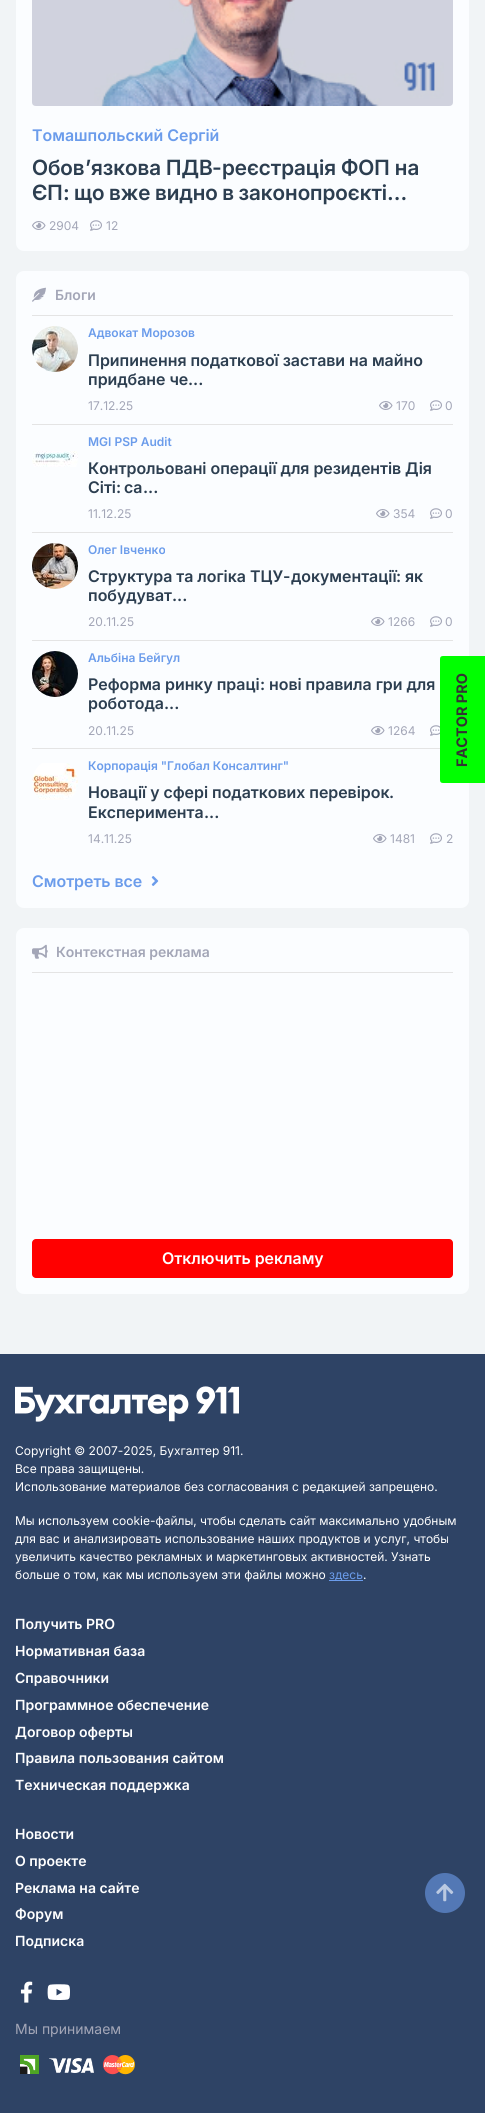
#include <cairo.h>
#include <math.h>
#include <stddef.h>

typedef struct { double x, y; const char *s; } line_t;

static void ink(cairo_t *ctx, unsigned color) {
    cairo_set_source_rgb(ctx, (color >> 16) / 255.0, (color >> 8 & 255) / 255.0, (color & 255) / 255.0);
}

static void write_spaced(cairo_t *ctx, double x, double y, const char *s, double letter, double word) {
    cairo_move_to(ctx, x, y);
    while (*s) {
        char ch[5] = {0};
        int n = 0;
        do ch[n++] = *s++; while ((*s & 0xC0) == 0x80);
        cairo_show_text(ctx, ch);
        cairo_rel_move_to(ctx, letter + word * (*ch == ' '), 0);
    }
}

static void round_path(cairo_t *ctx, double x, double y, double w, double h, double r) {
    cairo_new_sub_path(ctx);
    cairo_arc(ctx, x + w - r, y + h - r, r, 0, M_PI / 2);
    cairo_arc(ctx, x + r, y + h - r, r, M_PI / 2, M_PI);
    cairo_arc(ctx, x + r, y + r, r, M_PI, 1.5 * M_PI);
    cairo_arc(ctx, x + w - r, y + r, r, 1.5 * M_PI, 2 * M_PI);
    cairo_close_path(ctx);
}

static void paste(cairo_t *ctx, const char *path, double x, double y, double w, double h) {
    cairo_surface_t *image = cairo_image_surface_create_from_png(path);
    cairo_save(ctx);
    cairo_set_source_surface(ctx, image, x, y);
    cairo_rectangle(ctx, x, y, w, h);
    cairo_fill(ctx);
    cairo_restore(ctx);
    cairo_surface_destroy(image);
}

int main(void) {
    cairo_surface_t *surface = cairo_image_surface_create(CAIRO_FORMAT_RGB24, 485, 2113);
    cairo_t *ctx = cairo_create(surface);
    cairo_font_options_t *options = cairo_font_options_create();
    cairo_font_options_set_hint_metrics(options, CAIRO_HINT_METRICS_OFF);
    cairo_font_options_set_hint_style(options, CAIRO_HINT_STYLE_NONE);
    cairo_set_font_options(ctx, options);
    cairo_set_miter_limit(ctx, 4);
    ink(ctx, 0xF1F4F6);
    cairo_paint(ctx);
    ink(ctx, 0xFBFDFF);
    round_path(ctx, 16, -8, 453, 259, 8);
    cairo_fill(ctx);
    paste(ctx, "media/1.png", 32, 0, 421, 106);
    cairo_select_font_face(ctx, "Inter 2 SemiBold", CAIRO_FONT_SLANT_NORMAL, CAIRO_FONT_WEIGHT_NORMAL);
    cairo_set_font_size(ctx, 16);
    ink(ctx, 0x6B9CEB);
    cairo_move_to(ctx, 32, 141);
    cairo_show_text(ctx, "Томашпольский Сергій");
    cairo_select_font_face(ctx, "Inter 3 SemiBold", CAIRO_FONT_SLANT_NORMAL, CAIRO_FONT_WEIGHT_NORMAL);
    cairo_set_font_size(ctx, 21);
    ink(ctx, 0x2C3E50);
    cairo_move_to(ctx, 32, 175);
    cairo_show_text(ctx, "Обов");
    cairo_select_font_face(ctx, "Inter SemiBold", CAIRO_FONT_SLANT_NORMAL, CAIRO_FONT_WEIGHT_NORMAL);
    cairo_move_to(ctx, 85, 175);
    cairo_show_text(ctx, "’");
    cairo_select_font_face(ctx, "Inter 3 SemiBold", CAIRO_FONT_SLANT_NORMAL, CAIRO_FONT_WEIGHT_NORMAL);
    cairo_move_to(ctx, 91, 175);
    cairo_show_text(ctx, "язкова ПДВ");
    cairo_select_font_face(ctx, "Inter SemiBold", CAIRO_FONT_SLANT_NORMAL, CAIRO_FONT_WEIGHT_NORMAL);
    cairo_move_to(ctx, 212, 175);
    cairo_show_text(ctx, "-");
    cairo_select_font_face(ctx, "Inter 3 SemiBold", CAIRO_FONT_SLANT_NORMAL, CAIRO_FONT_WEIGHT_NORMAL);
    cairo_move_to(ctx, 222, 175);
    cairo_show_text(ctx, "реєстрація ФОП на");
    cairo_move_to(ctx, 32, 200);
    cairo_show_text(ctx, "ЄП");
    cairo_select_font_face(ctx, "Inter SemiBold", CAIRO_FONT_SLANT_NORMAL, CAIRO_FONT_WEIGHT_NORMAL);
    cairo_move_to(ctx, 63, 200);
    cairo_show_text(ctx, ":");
    cairo_select_font_face(ctx, "Inter 3 SemiBold", CAIRO_FONT_SLANT_NORMAL, CAIRO_FONT_WEIGHT_NORMAL);
    write_spaced(ctx, 74, 200, "що вже видно в законопроєкті", 0, -0.5);
    cairo_select_font_face(ctx, "Inter SemiBold", CAIRO_FONT_SLANT_NORMAL, CAIRO_FONT_WEIGHT_NORMAL);
    cairo_move_to(ctx, 387, 200);
    cairo_show_text(ctx, "...");
    paste(ctx, "media/2.png", 32, 221, 14, 9);
    cairo_select_font_face(ctx, "Inter", CAIRO_FONT_SLANT_NORMAL, CAIRO_FONT_WEIGHT_NORMAL);
    cairo_set_font_size(ctx, 12);
    ink(ctx, 0xA3A6B7);
    cairo_move_to(ctx, 49, 230);
    cairo_show_text(ctx, "2904");
    paste(ctx, "media/3.png", 90, 220, 12, 11);
    cairo_move_to(ctx, 106, 230);
    cairo_show_text(ctx, "12");
    ink(ctx, 0xFBFDFF);
    round_path(ctx, 16, 271, 453, 637, 8);
    cairo_fill(ctx);
    ink(ctx, 0xE4E4E4);
    cairo_rectangle(ctx, 32, 315, 421, 1);
    cairo_fill(ctx);
    paste(ctx, "media/4.png", 32, 287, 14, 15);
    cairo_select_font_face(ctx, "Inter SemiBold", CAIRO_FONT_SLANT_NORMAL, CAIRO_FONT_WEIGHT_NORMAL);
    cairo_set_font_size(ctx, 14);
    ink(ctx, 0xA3A6B7);
    cairo_move_to(ctx, 55, 300);
    cairo_show_text(ctx, "Блоги");
    paste(ctx, "media/5.png", 32, 326, 46, 46);
    cairo_set_font_size(ctx, 12);
    ink(ctx, 0x6B9CEB);
    cairo_move_to(ctx, 88, 337);
    cairo_show_text(ctx, "Адвокат Морозов");
    cairo_select_font_face(ctx, "Inter 2 SemiBold", CAIRO_FONT_SLANT_NORMAL, CAIRO_FONT_WEIGHT_NORMAL);
    cairo_set_font_size(ctx, 16);
    ink(ctx, 0x2C3E50);
    cairo_move_to(ctx, 88, 366);
    cairo_show_text(ctx, "Припинення податкової застави на майно");
    cairo_move_to(ctx, 88, 385);
    cairo_show_text(ctx, "придбане че");
    cairo_select_font_face(ctx, "Inter SemiBold", CAIRO_FONT_SLANT_NORMAL, CAIRO_FONT_WEIGHT_NORMAL);
    cairo_move_to(ctx, 188, 385);
    cairo_show_text(ctx, "...");
    cairo_select_font_face(ctx, "Inter", CAIRO_FONT_SLANT_NORMAL, CAIRO_FONT_WEIGHT_NORMAL);
    cairo_set_font_size(ctx, 12);
    ink(ctx, 0xA3A6B7);
    cairo_move_to(ctx, 88, 410);
    cairo_show_text(ctx, "17.12.25");
    paste(ctx, "media/2.png", 379, 401, 14, 9);
    cairo_move_to(ctx, 396, 410);
    cairo_show_text(ctx, "170");
    paste(ctx, "media/3.png", 430, 400, 12, 11);
    cairo_move_to(ctx, 445, 410);
    cairo_show_text(ctx, "0");
    ink(ctx, 0xE4E4E4);
    cairo_rectangle(ctx, 32, 424, 421, 1);
    cairo_fill(ctx);
    paste(ctx, "media/6.png", 32, 451, 46, 16);
    cairo_select_font_face(ctx, "Inter SemiBold", CAIRO_FONT_SLANT_NORMAL, CAIRO_FONT_WEIGHT_NORMAL);
    ink(ctx, 0x6B9CEB);
    cairo_move_to(ctx, 88, 446);
    cairo_show_text(ctx, "MGI PSP Audit");
    cairo_select_font_face(ctx, "Inter 2 SemiBold", CAIRO_FONT_SLANT_NORMAL, CAIRO_FONT_WEIGHT_NORMAL);
    cairo_set_font_size(ctx, 16);
    ink(ctx, 0x2C3E50);
    cairo_move_to(ctx, 88, 474);
    cairo_show_text(ctx, "Контрольовані операції для резидентів Дія");
    cairo_move_to(ctx, 88, 493);
    cairo_show_text(ctx, "Сіті");
    cairo_select_font_face(ctx, "Inter SemiBold", CAIRO_FONT_SLANT_NORMAL, CAIRO_FONT_WEIGHT_NORMAL);
    cairo_move_to(ctx, 116, 493);
    cairo_show_text(ctx, ":");
    cairo_select_font_face(ctx, "Inter 2 SemiBold", CAIRO_FONT_SLANT_NORMAL, CAIRO_FONT_WEIGHT_NORMAL);
    cairo_move_to(ctx, 124, 493);
    cairo_show_text(ctx, "са");
    cairo_select_font_face(ctx, "Inter SemiBold", CAIRO_FONT_SLANT_NORMAL, CAIRO_FONT_WEIGHT_NORMAL);
    cairo_move_to(ctx, 143, 493);
    cairo_show_text(ctx, "...");
    cairo_select_font_face(ctx, "Inter", CAIRO_FONT_SLANT_NORMAL, CAIRO_FONT_WEIGHT_NORMAL);
    cairo_set_font_size(ctx, 12);
    ink(ctx, 0xA3A6B7);
    cairo_move_to(ctx, 88, 518);
    cairo_show_text(ctx, "11.12.25");
    paste(ctx, "media/2.png", 376, 509, 14, 9);
    cairo_move_to(ctx, 393, 518);
    cairo_show_text(ctx, "354");
    paste(ctx, "media/3.png", 430, 508, 12, 11);
    cairo_move_to(ctx, 445, 518);
    cairo_show_text(ctx, "0");
    ink(ctx, 0xE4E4E4);
    cairo_rectangle(ctx, 32, 532, 421, 1);
    cairo_fill(ctx);
    paste(ctx, "media/7.png", 32, 543, 46, 46);
    cairo_select_font_face(ctx, "Inter SemiBold", CAIRO_FONT_SLANT_NORMAL, CAIRO_FONT_WEIGHT_NORMAL);
    ink(ctx, 0x6B9CEB);
    cairo_move_to(ctx, 88, 554);
    cairo_show_text(ctx, "Олег Івченко");
    cairo_select_font_face(ctx, "Inter 2 SemiBold", CAIRO_FONT_SLANT_NORMAL, CAIRO_FONT_WEIGHT_NORMAL);
    cairo_set_font_size(ctx, 16);
    ink(ctx, 0x2C3E50);
    cairo_move_to(ctx, 88, 582);
    cairo_show_text(ctx, "Структура та логіка ТЦУ");
    cairo_select_font_face(ctx, "Inter SemiBold", CAIRO_FONT_SLANT_NORMAL, CAIRO_FONT_WEIGHT_NORMAL);
    cairo_move_to(ctx, 283, 582);
    cairo_show_text(ctx, "-");
    cairo_select_font_face(ctx, "Inter 2 SemiBold", CAIRO_FONT_SLANT_NORMAL, CAIRO_FONT_WEIGHT_NORMAL);
    cairo_move_to(ctx, 291, 582);
    cairo_show_text(ctx, "документації");
    cairo_select_font_face(ctx, "Inter SemiBold", CAIRO_FONT_SLANT_NORMAL, CAIRO_FONT_WEIGHT_NORMAL);
    cairo_move_to(ctx, 396, 582);
    cairo_show_text(ctx, ":");
    cairo_select_font_face(ctx, "Inter 2 SemiBold", CAIRO_FONT_SLANT_NORMAL, CAIRO_FONT_WEIGHT_NORMAL);
    cairo_move_to(ctx, 405, 582);
    cairo_show_text(ctx, "як");
    cairo_move_to(ctx, 88, 601);
    cairo_show_text(ctx, "побудуват");
    cairo_select_font_face(ctx, "Inter SemiBold", CAIRO_FONT_SLANT_NORMAL, CAIRO_FONT_WEIGHT_NORMAL);
    cairo_move_to(ctx, 172, 601);
    cairo_show_text(ctx, "...");
    cairo_select_font_face(ctx, "Inter", CAIRO_FONT_SLANT_NORMAL, CAIRO_FONT_WEIGHT_NORMAL);
    cairo_set_font_size(ctx, 12);
    ink(ctx, 0xA3A6B7);
    cairo_move_to(ctx, 88, 626);
    cairo_show_text(ctx, "20.11.25");
    paste(ctx, "media/2.png", 371, 617, 14, 9);
    cairo_move_to(ctx, 388, 626);
    cairo_show_text(ctx, "1266");
    paste(ctx, "media/3.png", 430, 616, 12, 11);
    cairo_move_to(ctx, 445, 626);
    cairo_show_text(ctx, "0");
    ink(ctx, 0xE4E4E4);
    cairo_rectangle(ctx, 32, 640, 421, 1);
    cairo_fill(ctx);
    paste(ctx, "media/8.png", 32, 651, 46, 46);
    cairo_select_font_face(ctx, "Inter SemiBold", CAIRO_FONT_SLANT_NORMAL, CAIRO_FONT_WEIGHT_NORMAL);
    ink(ctx, 0x6B9CEB);
    cairo_move_to(ctx, 88, 662);
    cairo_show_text(ctx, "Альбіна Бейгул");
    cairo_select_font_face(ctx, "Inter 2 SemiBold", CAIRO_FONT_SLANT_NORMAL, CAIRO_FONT_WEIGHT_NORMAL);
    cairo_set_font_size(ctx, 16);
    ink(ctx, 0x2C3E50);
    cairo_move_to(ctx, 88, 690);
    cairo_show_text(ctx, "Реформа ринку праці");
    cairo_select_font_face(ctx, "Inter SemiBold", CAIRO_FONT_SLANT_NORMAL, CAIRO_FONT_WEIGHT_NORMAL);
    cairo_move_to(ctx, 260, 690);
    cairo_show_text(ctx, ":");
    cairo_select_font_face(ctx, "Inter 2 SemiBold", CAIRO_FONT_SLANT_NORMAL, CAIRO_FONT_WEIGHT_NORMAL);
    cairo_move_to(ctx, 269, 690);
    cairo_show_text(ctx, "нові правила гри для");
    cairo_move_to(ctx, 88, 709);
    cairo_show_text(ctx, "роботода");
    cairo_select_font_face(ctx, "Inter SemiBold", CAIRO_FONT_SLANT_NORMAL, CAIRO_FONT_WEIGHT_NORMAL);
    cairo_move_to(ctx, 164, 709);
    cairo_show_text(ctx, "...");
    cairo_select_font_face(ctx, "Inter", CAIRO_FONT_SLANT_NORMAL, CAIRO_FONT_WEIGHT_NORMAL);
    cairo_set_font_size(ctx, 12);
    ink(ctx, 0xA3A6B7);
    cairo_move_to(ctx, 88, 735);
    cairo_show_text(ctx, "20.11.25");
    paste(ctx, "media/2.png", 371, 726, 14, 9);
    cairo_move_to(ctx, 388, 735);
    cairo_show_text(ctx, "1264");
    paste(ctx, "media/9.png", 430, 725, 10, 11);
    ink(ctx, 0xE4E4E4);
    cairo_rectangle(ctx, 32, 748, 408, 1);
    cairo_fill(ctx);
    paste(ctx, "media/10.png", 32, 763, 46, 37);
    cairo_select_font_face(ctx, "Inter SemiBold", CAIRO_FONT_SLANT_NORMAL, CAIRO_FONT_WEIGHT_NORMAL);
    ink(ctx, 0x6B9CEB);
    cairo_move_to(ctx, 88, 770);
    cairo_show_text(ctx, "Корпорація \"Глобал Консалтинг\"");
    cairo_select_font_face(ctx, "Inter 2 SemiBold", CAIRO_FONT_SLANT_NORMAL, CAIRO_FONT_WEIGHT_NORMAL);
    cairo_set_font_size(ctx, 16);
    ink(ctx, 0x2C3E50);
    cairo_move_to(ctx, 88, 798);
    cairo_show_text(ctx, "Новації у сфері податкових перевірок");
    cairo_select_font_face(ctx, "Inter SemiBold", CAIRO_FONT_SLANT_NORMAL, CAIRO_FONT_WEIGHT_NORMAL);
    cairo_move_to(ctx, 389, 798);
    cairo_show_text(ctx, ".");
    cairo_select_font_face(ctx, "Inter 2 SemiBold", CAIRO_FONT_SLANT_NORMAL, CAIRO_FONT_WEIGHT_NORMAL);
    cairo_move_to(ctx, 88, 818);
    cairo_show_text(ctx, "Експеримента");
    cairo_select_font_face(ctx, "Inter SemiBold", CAIRO_FONT_SLANT_NORMAL, CAIRO_FONT_WEIGHT_NORMAL);
    cairo_move_to(ctx, 204, 818);
    cairo_show_text(ctx, "...");
    cairo_select_font_face(ctx, "Inter", CAIRO_FONT_SLANT_NORMAL, CAIRO_FONT_WEIGHT_NORMAL);
    cairo_set_font_size(ctx, 12);
    ink(ctx, 0xA3A6B7);
    cairo_move_to(ctx, 88, 843);
    cairo_show_text(ctx, "14.11.25");
    paste(ctx, "media/2.png", 373, 834, 14, 9);
    cairo_move_to(ctx, 390, 843);
    cairo_show_text(ctx, "1481");
    paste(ctx, "media/3.png", 430, 833, 12, 11);
    cairo_move_to(ctx, 446, 843);
    cairo_show_text(ctx, "2");
    cairo_select_font_face(ctx, "Inter 2 SemiBold", CAIRO_FONT_SLANT_NORMAL, CAIRO_FONT_WEIGHT_NORMAL);
    cairo_set_font_size(ctx, 16);
    ink(ctx, 0x6B9CEB);
    cairo_move_to(ctx, 32, 887);
    cairo_show_text(ctx, "Смотреть все");
    paste(ctx, "media/11.png", 151, 876, 8, 10);
    ink(ctx, 0x00FF00);
    cairo_new_path(ctx);
    cairo_move_to(ctx, 440, 780);
    cairo_line_to(ctx, 440, 659);
    cairo_curve_to(ctx, 440, 657, 441, 656, 443, 656);
    cairo_line_to(ctx, 485, 656);
    cairo_line_to(ctx, 485, 783);
    cairo_line_to(ctx, 443, 783);
    cairo_curve_to(ctx, 441, 783, 440, 782, 440, 780);
    cairo_close_path(ctx);
    cairo_fill(ctx);
    cairo_select_font_face(ctx, "Inter", CAIRO_FONT_SLANT_NORMAL, CAIRO_FONT_WEIGHT_BOLD);
    cairo_set_font_size(ctx, 14.5);
    ink(ctx, 0x333333);
    cairo_save(ctx);
    cairo_translate(ctx, 467, 767);
    cairo_rotate(ctx, -90 * M_PI / 180);
    cairo_move_to(ctx, 0, 0);
    cairo_show_text(ctx, "FACTOR PRO");
    cairo_restore(ctx);
    ink(ctx, 0xFBFDFF);
    round_path(ctx, 16, 928, 453, 366, 8);
    cairo_fill(ctx);
    ink(ctx, 0xE4E4E4);
    cairo_rectangle(ctx, 32, 972, 421, 1);
    cairo_fill(ctx);
    paste(ctx, "media/12.png", 32, 944, 16, 15);
    cairo_select_font_face(ctx, "Inter SemiBold", CAIRO_FONT_SLANT_NORMAL, CAIRO_FONT_WEIGHT_NORMAL);
    cairo_set_font_size(ctx, 14);
    ink(ctx, 0xA3A6B7);
    cairo_move_to(ctx, 56, 957);
    cairo_show_text(ctx, "Контекстная реклама");
    ink(ctx, 0xFF0000);
    round_path(ctx, 32, 1239, 421, 39, 4);
    cairo_fill(ctx);
    cairo_select_font_face(ctx, "Inter 2 SemiBold", CAIRO_FONT_SLANT_NORMAL, CAIRO_FONT_WEIGHT_NORMAL);
    cairo_set_font_size(ctx, 16);
    ink(ctx, 0xFFFFFF);
    cairo_move_to(ctx, 162, 1264);
    cairo_show_text(ctx, "Отключить рекламу");
    ink(ctx, 0x2E4365);
    cairo_rectangle(ctx, 0, 1354, 485, 759);
    cairo_fill(ctx);
    paste(ctx, "media/13.png", 15, 1386, 224, 36);
    cairo_select_font_face(ctx, "Inter", CAIRO_FONT_SLANT_NORMAL, CAIRO_FONT_WEIGHT_NORMAL);
    cairo_set_font_size(ctx, 12);
    ink(ctx, 0xFFFFFF);
    {
        static const line_t items[] = {
            {15, 1455, "Copyright © 2007-2025, Бухгалтер 911."},
            {15, 1473, "Все права защищены."},
            {15, 1491, "Использование материалов без согласования с редакцией запрещено."},
            {15, 1525, "Мы используем cookie-файлы, чтобы сделать сайт максимально удобным"},
            {15, 1543, "для вас и анализировать использование наших продуктов и услуг, чтобы"},
            {15, 1561, "увеличить качество рекламных и маркетинговых активностей. Узнать"},
            {15, 1579, "больше о том, как мы используем эти файлы можно"},
        };
        for (size_t i = 0; i < sizeof items / sizeof *items; i++) {
            cairo_move_to(ctx, items[i].x, items[i].y);
            cairo_show_text(ctx, items[i].s);
        }
    }
    ink(ctx, 0x6B9CEB);
    cairo_rectangle(ctx, 329, 1580, 34, 1);
    cairo_fill(ctx);
    cairo_move_to(ctx, 329, 1579);
    cairo_show_text(ctx, "здесь");
    ink(ctx, 0xFFFFFF);
    cairo_move_to(ctx, 363, 1579);
    cairo_show_text(ctx, ".");
    cairo_select_font_face(ctx, "Inter SemiBold", CAIRO_FONT_SLANT_NORMAL, CAIRO_FONT_WEIGHT_NORMAL);
    cairo_set_font_size(ctx, 14);
    {
        static const line_t items[] = {
            {15, 1629, "Получить PRO"},
            {15, 1656, "Нормативная база"},
            {15, 1683, "Справочники"},
            {15, 1710, "Программное обеспечение"},
            {15, 1737, "Договор оферты"},
            {15, 1763, "Правила пользования сайтом"},
            {15, 1790, "Техническая поддержка"},
            {15, 1839, "Новости"},
            {15, 1866, "О проекте"},
            {15, 1893, "Реклама на сайте"},
            {15, 1919, "Форум"},
            {15, 1946, "Подписка"},
        };
        for (size_t i = 0; i < sizeof items / sizeof *items; i++) {
            cairo_move_to(ctx, items[i].x, items[i].y);
            cairo_show_text(ctx, items[i].s);
        }
    }
    paste(ctx, "media/14.png", 20, 1981, 13, 22);
    paste(ctx, "media/15.png", 47, 1984, 23, 16);
    cairo_select_font_face(ctx, "Inter", CAIRO_FONT_SLANT_NORMAL, CAIRO_FONT_WEIGHT_NORMAL);
    ink(ctx, 0xA3A6B7);
    cairo_move_to(ctx, 15, 2034);
    cairo_show_text(ctx, "Мы принимаем");
    paste(ctx, "media/16.png", 20, 2055, 19, 19);
    paste(ctx, "media/17.png", 49, 2058, 45, 15);
    paste(ctx, "media/18.png", 103, 2055, 32, 20);
    ink(ctx, 0x5378B5);
    cairo_arc(ctx, 445, 1893, 20, 0, 2 * M_PI);
    cairo_fill(ctx);
    paste(ctx, "media/19.png", 436, 1883, 18, 19);
    cairo_surface_write_to_png(surface, "image.png");
    cairo_font_options_destroy(options);
    cairo_destroy(ctx);
    cairo_surface_destroy(surface);
    return 0;
}
